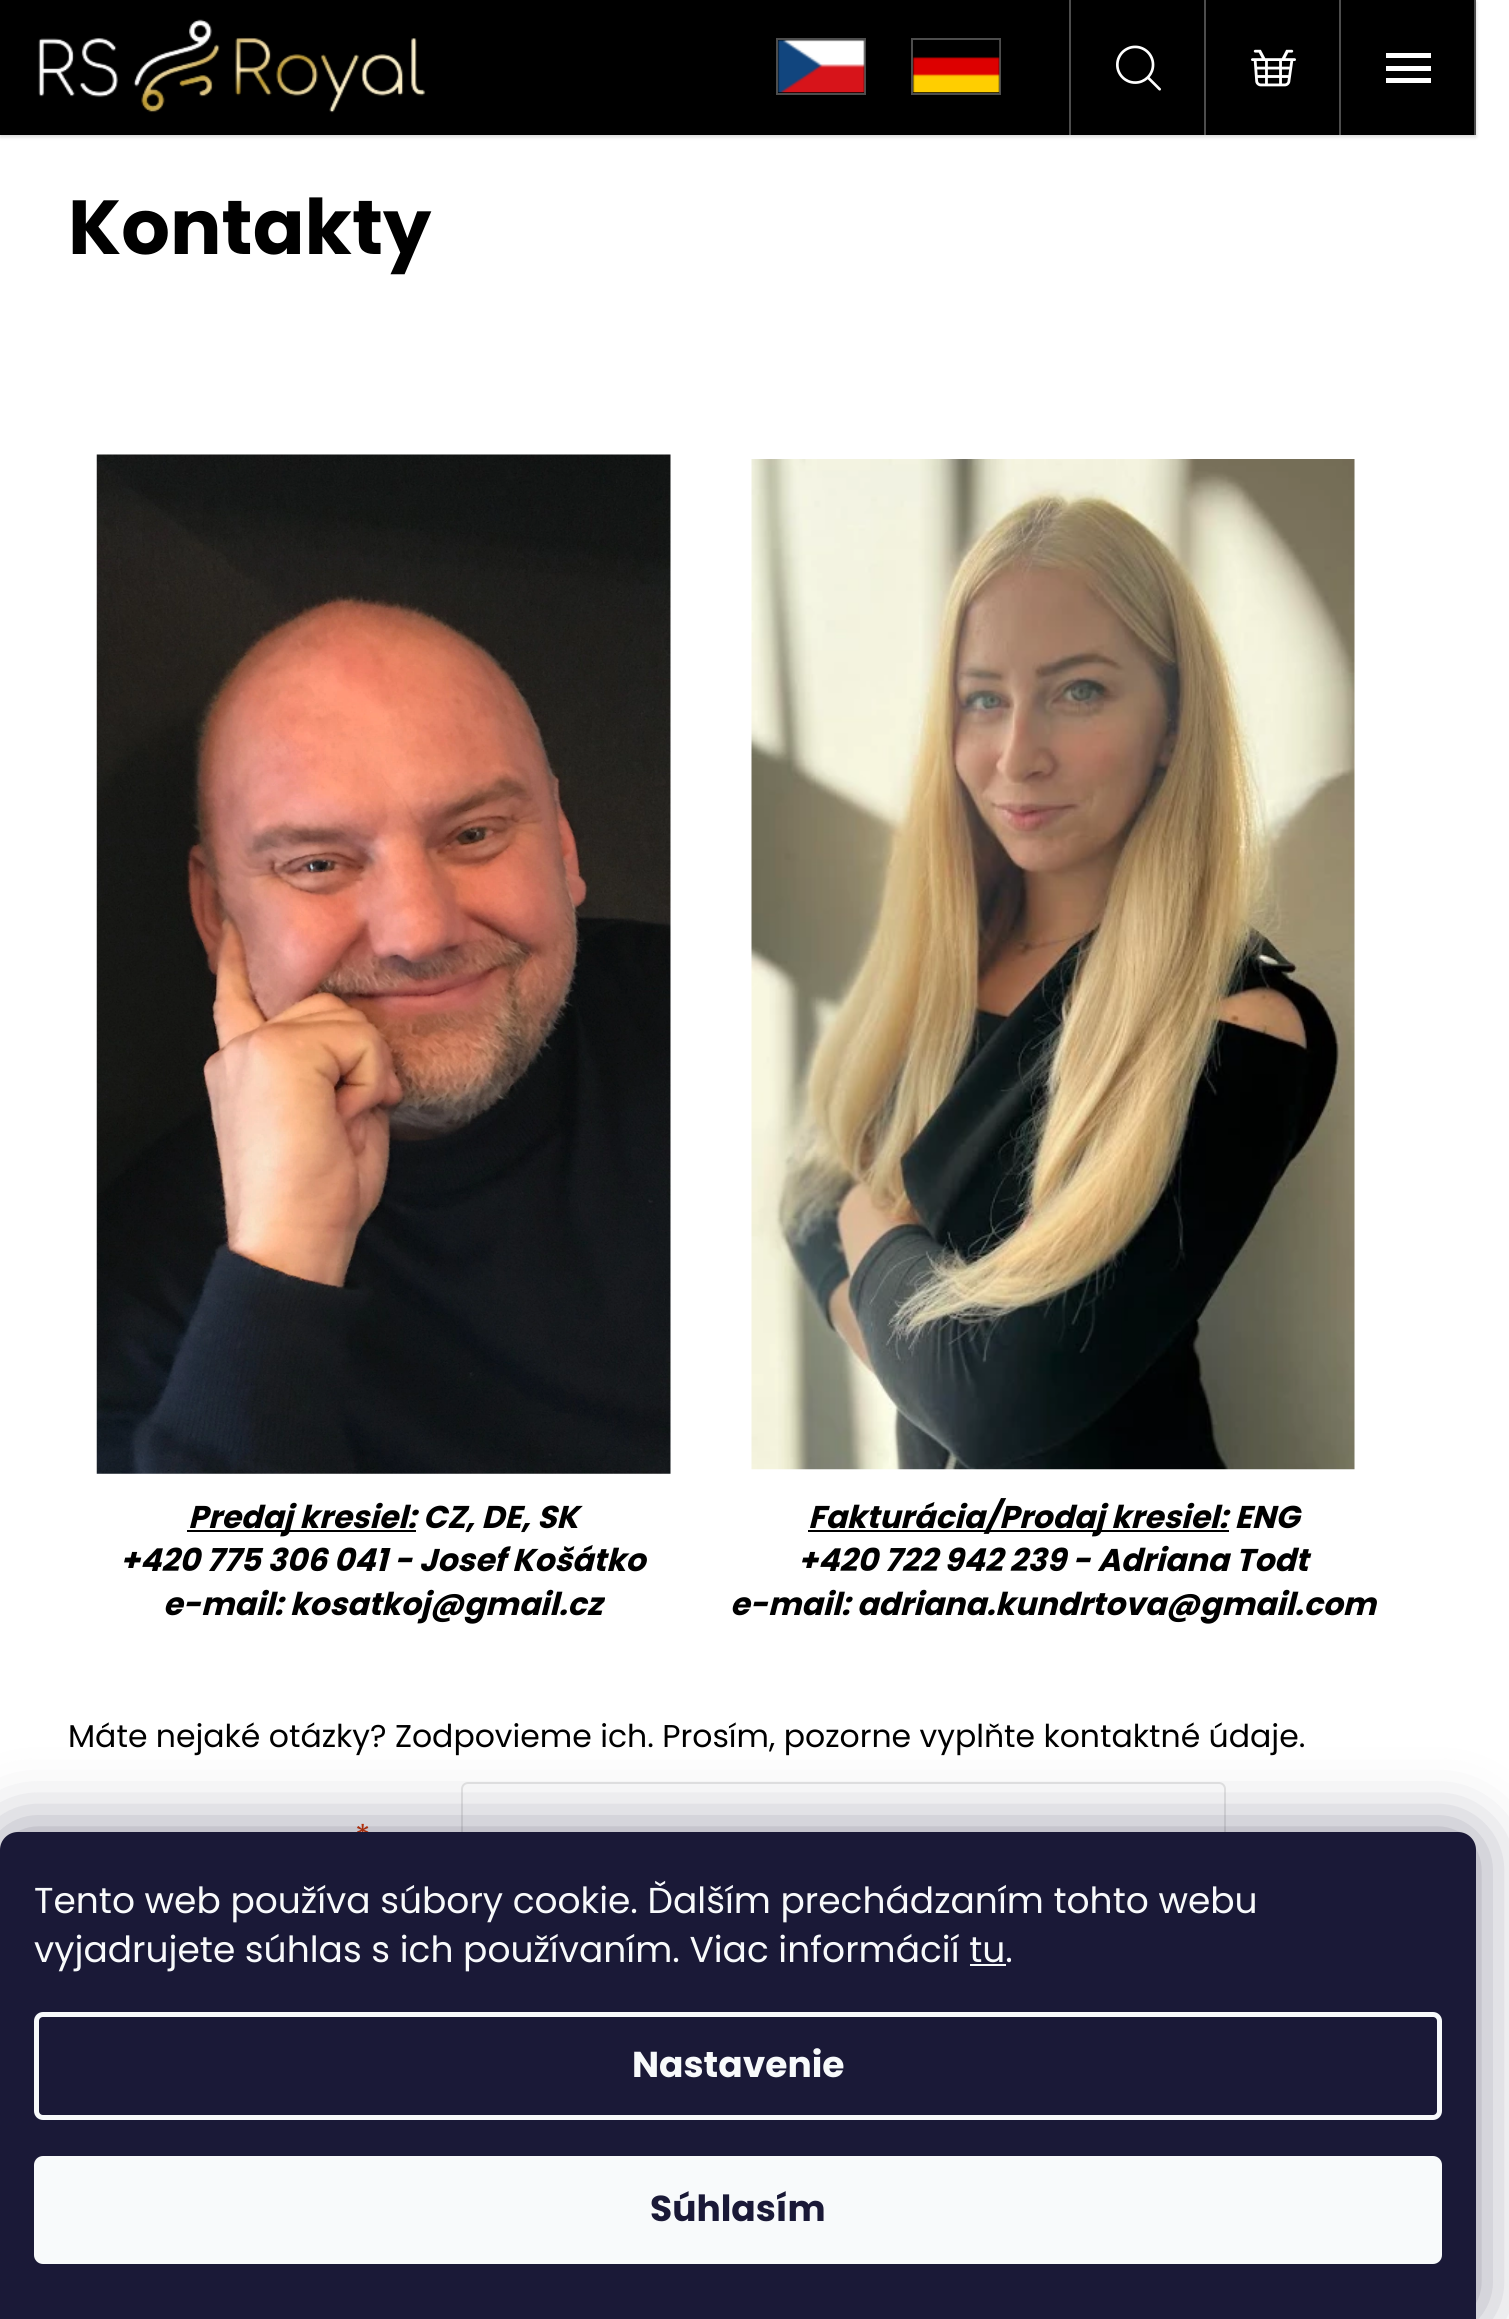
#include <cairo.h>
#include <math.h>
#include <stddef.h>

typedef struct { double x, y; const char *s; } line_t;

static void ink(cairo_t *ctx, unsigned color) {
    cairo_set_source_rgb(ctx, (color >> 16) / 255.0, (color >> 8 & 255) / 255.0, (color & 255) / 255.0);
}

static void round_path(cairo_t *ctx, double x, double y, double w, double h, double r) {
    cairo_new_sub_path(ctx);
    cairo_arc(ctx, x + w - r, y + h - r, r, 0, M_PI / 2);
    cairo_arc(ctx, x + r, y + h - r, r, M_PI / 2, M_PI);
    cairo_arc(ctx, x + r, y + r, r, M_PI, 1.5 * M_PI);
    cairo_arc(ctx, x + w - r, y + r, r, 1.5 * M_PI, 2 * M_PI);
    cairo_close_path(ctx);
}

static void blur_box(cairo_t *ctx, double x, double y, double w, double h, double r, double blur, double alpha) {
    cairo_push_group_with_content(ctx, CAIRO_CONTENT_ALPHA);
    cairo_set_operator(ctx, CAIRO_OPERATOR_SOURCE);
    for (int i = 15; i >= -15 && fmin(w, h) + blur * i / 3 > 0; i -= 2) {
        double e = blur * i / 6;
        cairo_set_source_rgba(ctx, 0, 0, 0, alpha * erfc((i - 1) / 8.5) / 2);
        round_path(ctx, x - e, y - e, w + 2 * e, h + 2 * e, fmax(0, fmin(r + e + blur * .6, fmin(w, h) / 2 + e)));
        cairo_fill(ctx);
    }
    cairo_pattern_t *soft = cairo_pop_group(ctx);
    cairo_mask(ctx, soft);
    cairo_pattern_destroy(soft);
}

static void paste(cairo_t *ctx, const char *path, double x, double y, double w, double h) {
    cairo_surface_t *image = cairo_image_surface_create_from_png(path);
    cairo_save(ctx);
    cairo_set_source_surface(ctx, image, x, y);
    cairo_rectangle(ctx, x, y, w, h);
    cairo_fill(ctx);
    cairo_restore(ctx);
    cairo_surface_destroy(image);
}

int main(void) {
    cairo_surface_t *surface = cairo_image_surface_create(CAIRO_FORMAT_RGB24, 1509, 2319);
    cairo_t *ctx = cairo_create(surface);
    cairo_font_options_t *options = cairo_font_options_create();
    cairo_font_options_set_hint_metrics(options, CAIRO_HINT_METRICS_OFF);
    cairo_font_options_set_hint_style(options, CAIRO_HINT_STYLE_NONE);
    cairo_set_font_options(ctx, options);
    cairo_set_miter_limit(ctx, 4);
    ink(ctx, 0xFFFFFF);
    cairo_paint(ctx);
    ink(ctx, 0x000000);
    blur_box(ctx, 0, 2, 1476, 135, 0, 2, 0.16);
    ink(ctx, 0x000000);
    cairo_rectangle(ctx, 0, 0, 1474, 135);
    cairo_fill(ctx);
    paste(ctx, "media/1.png", 38, 19, 388, 94);
    ink(ctx, 0x4D4D4D);
    cairo_rectangle(ctx, 1474, 0, 2, 135);
    cairo_fill(ctx);
    cairo_rectangle(ctx, 777, 39, 88, 55);
    cairo_stroke(ctx);
    paste(ctx, "media/2.png", 778, 40, 87, 53);
    cairo_rectangle(ctx, 912, 39, 88, 55);
    cairo_stroke(ctx);
    paste(ctx, "media/3.png", 913, 40, 87, 53);
    cairo_rectangle(ctx, 1069, 0, 2, 135);
    cairo_fill(ctx);
    paste(ctx, "media/4.png", 1116, 45, 45, 46);
    cairo_rectangle(ctx, 1204, 0, 2, 135);
    cairo_fill(ctx);
    paste(ctx, "media/5.png", 1251, 49, 45, 38);
    cairo_rectangle(ctx, 1339, 0, 2, 135);
    cairo_fill(ctx);
    ink(ctx, 0xFFFFFF);
    cairo_new_path(ctx);
    cairo_move_to(ctx, 1386, 83);
    cairo_line_to(ctx, 1431, 83);
    cairo_line_to(ctx, 1431, 78);
    cairo_line_to(ctx, 1386, 78);
    cairo_close_path(ctx);
    cairo_move_to(ctx, 1386, 71);
    cairo_line_to(ctx, 1431, 71);
    cairo_line_to(ctx, 1431, 66);
    cairo_line_to(ctx, 1386, 66);
    cairo_close_path(ctx);
    cairo_move_to(ctx, 1386, 53);
    cairo_line_to(ctx, 1386, 58);
    cairo_line_to(ctx, 1431, 58);
    cairo_line_to(ctx, 1431, 53);
    cairo_close_path(ctx);
    cairo_fill(ctx);
    cairo_select_font_face(ctx, "Poppins", CAIRO_FONT_SLANT_NORMAL, CAIRO_FONT_WEIGHT_BOLD);
    cairo_set_font_size(ctx, 76.5);
    ink(ctx, 0x000000);
    cairo_move_to(ctx, 68, 254);
    cairo_show_text(ctx, "Kontakty");
    paste(ctx, "media/6.png", 96, 454, 575, 1020);
    paste(ctx, "media/7.png", 751, 459, 604, 1011);
    cairo_rectangle(ctx, 187, 1530, 229, 2);
    cairo_fill(ctx);
    cairo_select_font_face(ctx, "Poppins", CAIRO_FONT_SLANT_ITALIC, CAIRO_FONT_WEIGHT_BOLD);
    cairo_set_font_size(ctx, 31.5);
    {
        static const line_t items[] = {
            {188, 1528, "Predaj kresiel: CZ, DE, SK"},
            {120, 1571, "+420 775 306 041 - Josef Košátko"},
            {163, 1615, "e-mail: kosatkoj@gmail.cz"},
        };
        for (size_t i = 0; i < sizeof items / sizeof *items; i++) {
            cairo_move_to(ctx, items[i].x, items[i].y);
            cairo_show_text(ctx, items[i].s);
        }
    }
    cairo_rectangle(ctx, 808, 1530, 421, 2);
    cairo_fill(ctx);
    {
        static const line_t items[] = {
            {808, 1528, "Fakturácia/Prodaj kresiel: ENG"},
            {798, 1571, "+420 722 942 239 - Adriana Todt"},
            {730, 1615, "e-mail: adriana.kundrtova@gmail.com"},
        };
        for (size_t i = 0; i < sizeof items / sizeof *items; i++) {
            cairo_move_to(ctx, items[i].x, items[i].y);
            cairo_show_text(ctx, items[i].s);
        }
    }
    cairo_select_font_face(ctx, "Poppins", CAIRO_FONT_SLANT_NORMAL, CAIRO_FONT_WEIGHT_NORMAL);
    cairo_move_to(ctx, 68, 1747);
    cairo_show_text(ctx, "Máte nejaké otázky? Zodpovieme ich. Prosím, pozorne vyplňte kontaktné údaje.");
    ink(ctx, 0xD63500);
    cairo_move_to(ctx, 355, 1847);
    cairo_show_text(ctx, "*");
    round_path(ctx, 462, 1783, 763, 106, 6);
    ink(ctx, 0xE6E6E6);
    cairo_stroke(ctx);
    ink(ctx, 0x1B1939);
    blur_box(ctx, 0, 1832, 1476, 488, 18, 34, 0.5);
    ink(ctx, 0x1A1937);
    cairo_new_path(ctx);
    cairo_move_to(ctx, 18, 1832);
    cairo_line_to(ctx, 1458, 1832);
    cairo_curve_to(ctx, 1468, 1832, 1476, 1840, 1476, 1850);
    cairo_line_to(ctx, 1476, 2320);
    cairo_line_to(ctx, 0, 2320);
    cairo_line_to(ctx, 0, 1850);
    cairo_curve_to(ctx, 0, 1840, 8, 1832, 18, 1832);
    cairo_close_path(ctx);
    cairo_fill(ctx);
    cairo_set_font_size(ctx, 36);
    ink(ctx, 0xF8FAFB);
    cairo_move_to(ctx, 34, 1913);
    cairo_show_text(ctx, "Tento web používa súbory cookie. Ďalším prechádzaním tohto webu");
    cairo_move_to(ctx, 34, 1962);
    cairo_show_text(ctx, "vyjadrujete súhlas s ich používaním. Viac informácií tu.");
    cairo_rectangle(ctx, 970, 1964, 36, 2);
    cairo_fill(ctx);
    round_path(ctx, 36.5, 2014.5, 1403, 103, 6.5);
    cairo_set_line_width(ctx, 5);
    cairo_stroke(ctx);
    cairo_select_font_face(ctx, "Poppins", CAIRO_FONT_SLANT_NORMAL, CAIRO_FONT_WEIGHT_BOLD);
    cairo_move_to(ctx, 632, 2077);
    cairo_show_text(ctx, "Nastavenie");
    round_path(ctx, 34, 2156, 1408, 108, 9);
    cairo_fill(ctx);
    ink(ctx, 0x1A1937);
    cairo_move_to(ctx, 650, 2221);
    cairo_show_text(ctx, "Súhlasím");
    cairo_surface_write_to_png(surface, "image.png");
    cairo_font_options_destroy(options);
    cairo_destroy(ctx);
    cairo_surface_destroy(surface);
    return 0;
}
